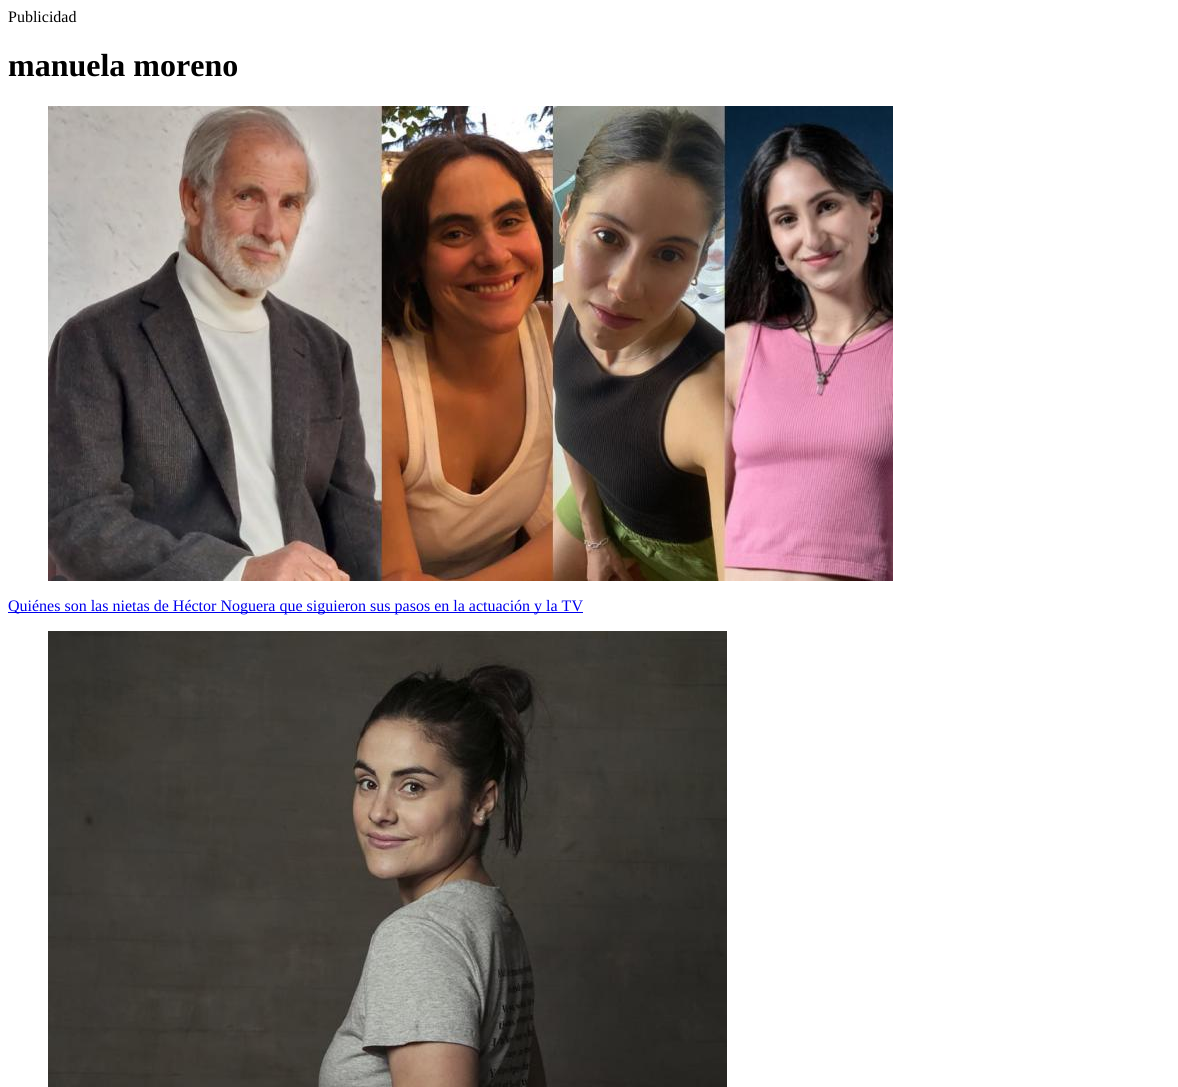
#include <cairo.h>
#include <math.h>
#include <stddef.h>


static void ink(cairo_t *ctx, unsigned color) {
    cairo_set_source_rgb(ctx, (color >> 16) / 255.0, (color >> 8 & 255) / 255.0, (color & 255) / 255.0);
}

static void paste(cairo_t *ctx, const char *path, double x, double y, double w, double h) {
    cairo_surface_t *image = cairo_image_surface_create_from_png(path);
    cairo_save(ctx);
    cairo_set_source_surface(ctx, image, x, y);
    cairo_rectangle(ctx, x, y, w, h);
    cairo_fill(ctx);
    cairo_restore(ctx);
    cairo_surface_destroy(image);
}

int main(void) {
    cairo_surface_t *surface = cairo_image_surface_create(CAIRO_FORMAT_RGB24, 1178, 1087);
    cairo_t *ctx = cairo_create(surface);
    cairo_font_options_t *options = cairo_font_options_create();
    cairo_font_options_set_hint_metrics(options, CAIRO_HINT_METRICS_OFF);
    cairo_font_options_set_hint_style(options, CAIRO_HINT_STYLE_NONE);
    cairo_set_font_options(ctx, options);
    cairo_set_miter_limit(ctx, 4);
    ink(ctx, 0xFFFFFF);
    cairo_paint(ctx);
    cairo_select_font_face(ctx, "Liberation Serif", CAIRO_FONT_SLANT_NORMAL, CAIRO_FONT_WEIGHT_NORMAL);
    cairo_set_font_size(ctx, 16);
    ink(ctx, 0x000000);
    cairo_move_to(ctx, 8, 22);
    cairo_show_text(ctx, "Publicidad");
    cairo_select_font_face(ctx, "Liberation Serif", CAIRO_FONT_SLANT_NORMAL, CAIRO_FONT_WEIGHT_BOLD);
    cairo_set_font_size(ctx, 32);
    cairo_move_to(ctx, 8, 76);
    cairo_show_text(ctx, "manuela moreno");
    paste(ctx, "media/1.png", 48, 106, 845, 475);
    ink(ctx, 0x0000EE);
    cairo_rectangle(ctx, 8, 612, 575, 1);
    cairo_fill(ctx);
    cairo_select_font_face(ctx, "Liberation Serif", CAIRO_FONT_SLANT_NORMAL, CAIRO_FONT_WEIGHT_NORMAL);
    cairo_set_font_size(ctx, 16);
    cairo_move_to(ctx, 8, 611);
    cairo_show_text(ctx, "Quiénes son las nietas de Héctor Noguera que siguieron sus pasos en la actuación y la TV");
    paste(ctx, "media/2.png", 48, 631, 679, 456);
    cairo_surface_write_to_png(surface, "image.png");
    cairo_font_options_destroy(options);
    cairo_destroy(ctx);
    cairo_surface_destroy(surface);
    return 0;
}
